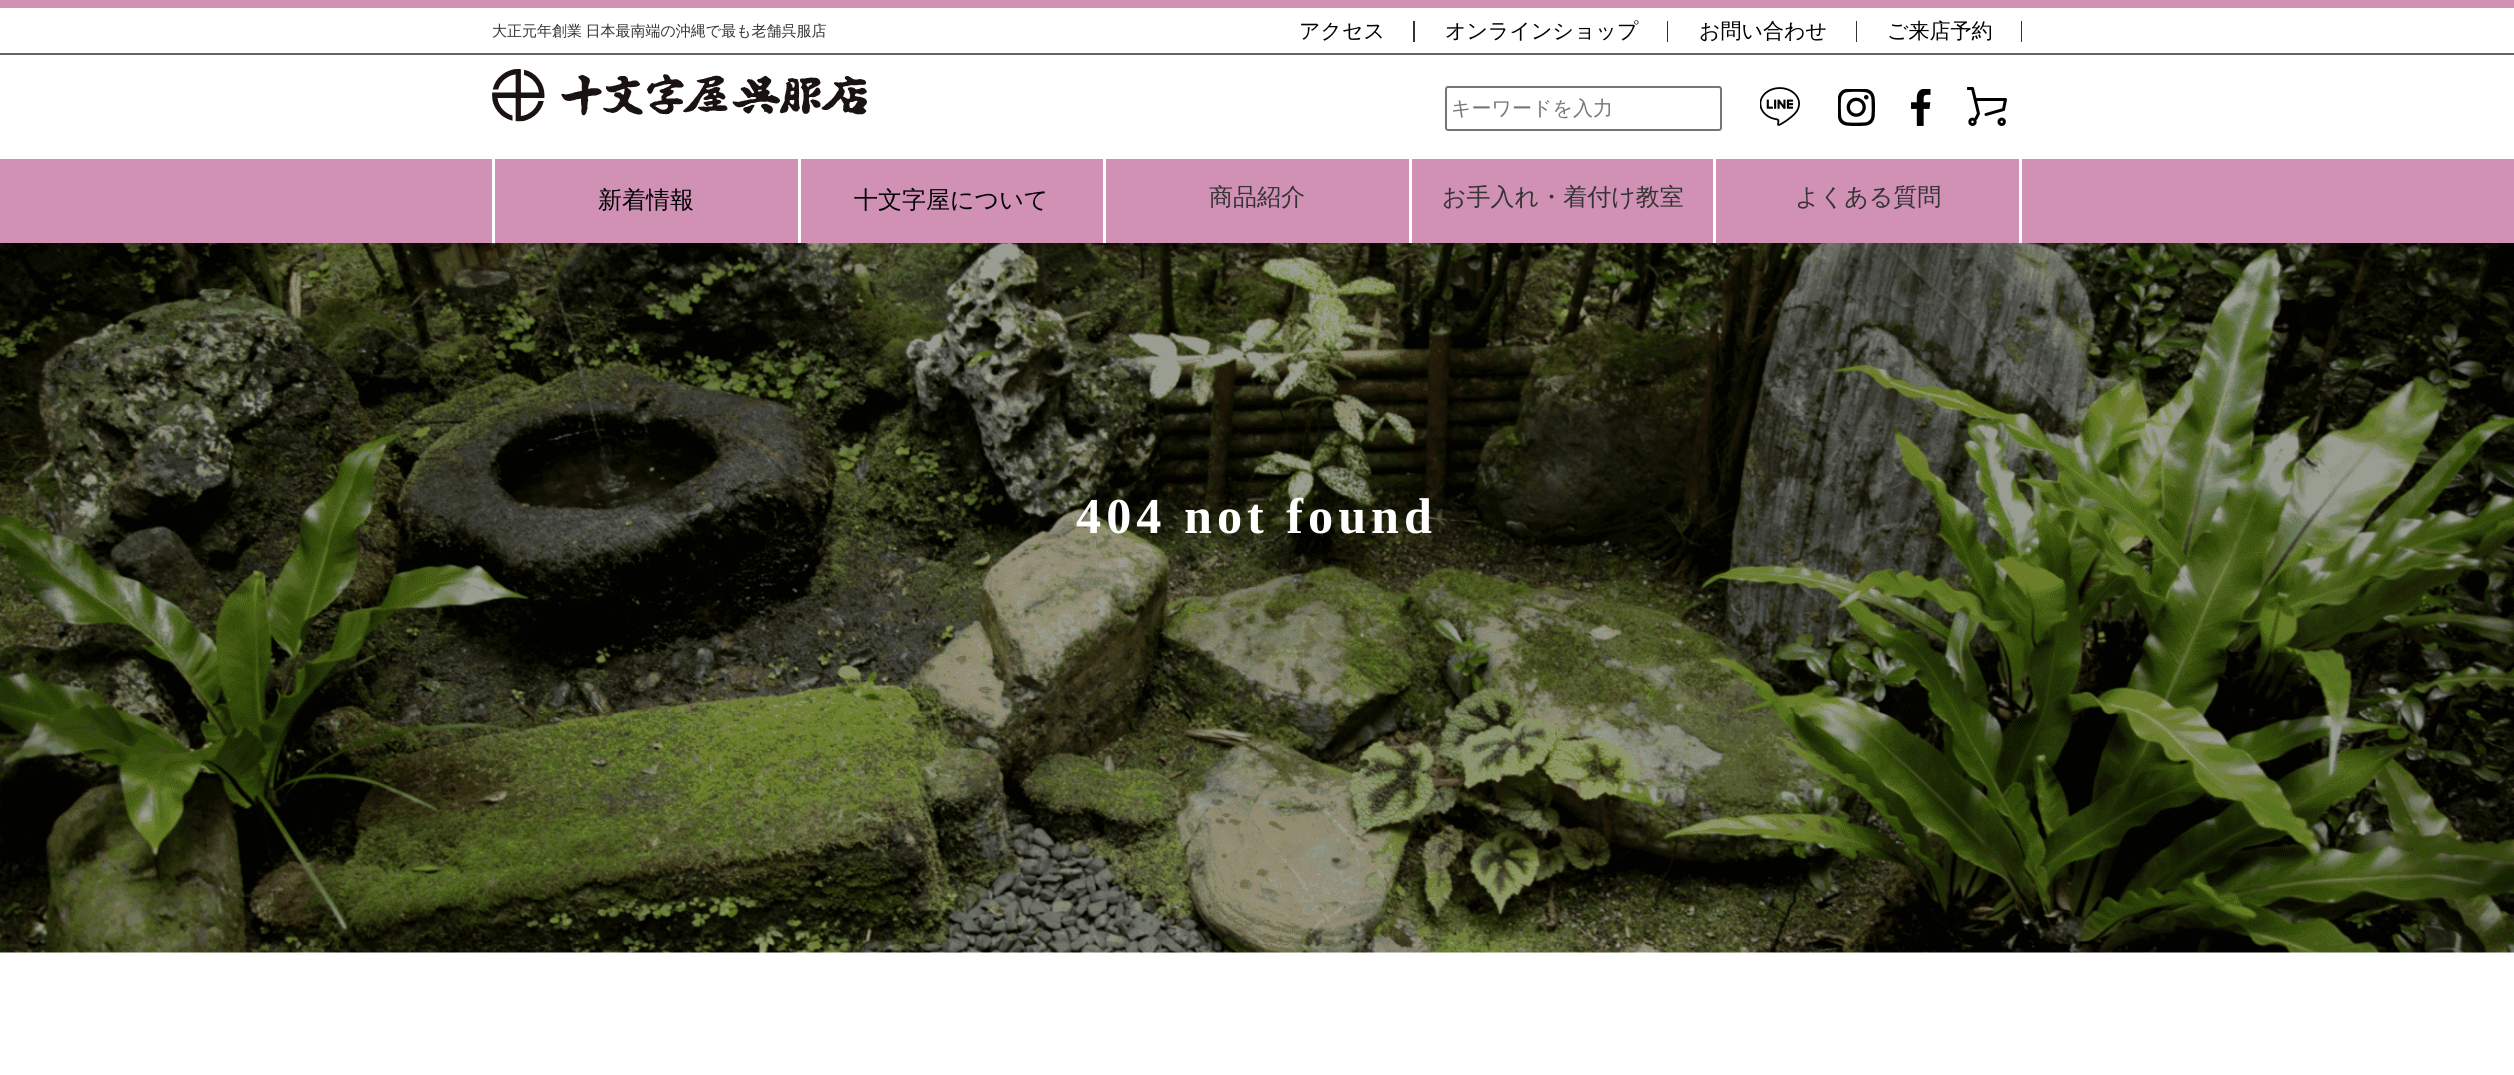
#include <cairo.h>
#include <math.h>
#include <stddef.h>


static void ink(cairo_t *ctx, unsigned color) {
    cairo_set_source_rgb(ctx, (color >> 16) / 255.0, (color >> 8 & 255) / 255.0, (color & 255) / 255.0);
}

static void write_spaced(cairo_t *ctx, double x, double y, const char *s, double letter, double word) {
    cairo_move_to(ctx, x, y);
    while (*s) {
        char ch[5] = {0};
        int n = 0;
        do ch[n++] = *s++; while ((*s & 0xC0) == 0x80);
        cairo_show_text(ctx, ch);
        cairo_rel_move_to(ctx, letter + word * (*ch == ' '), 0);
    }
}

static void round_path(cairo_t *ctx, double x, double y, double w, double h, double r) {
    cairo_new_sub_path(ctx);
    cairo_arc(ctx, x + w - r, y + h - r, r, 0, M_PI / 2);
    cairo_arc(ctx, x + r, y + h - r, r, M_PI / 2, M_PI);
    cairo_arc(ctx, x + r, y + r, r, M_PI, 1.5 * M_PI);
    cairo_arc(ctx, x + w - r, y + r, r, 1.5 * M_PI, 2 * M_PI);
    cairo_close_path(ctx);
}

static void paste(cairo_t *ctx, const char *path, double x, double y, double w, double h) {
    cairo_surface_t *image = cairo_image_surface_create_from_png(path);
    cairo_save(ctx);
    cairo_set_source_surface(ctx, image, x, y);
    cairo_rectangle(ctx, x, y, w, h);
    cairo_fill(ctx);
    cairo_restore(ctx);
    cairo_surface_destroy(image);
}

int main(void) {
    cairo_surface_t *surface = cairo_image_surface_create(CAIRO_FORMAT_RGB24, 2514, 1075);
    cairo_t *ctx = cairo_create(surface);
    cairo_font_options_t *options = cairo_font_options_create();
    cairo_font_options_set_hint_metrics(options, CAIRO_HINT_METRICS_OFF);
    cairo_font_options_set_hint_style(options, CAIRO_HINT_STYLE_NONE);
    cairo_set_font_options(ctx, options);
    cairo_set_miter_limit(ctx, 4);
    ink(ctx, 0xFFFFFF);
    cairo_paint(ctx);
    ink(ctx, 0xD091B5);
    cairo_rectangle(ctx, 0, 0, 2514, 8);
    cairo_fill(ctx);
    ink(ctx, 0x666666);
    cairo_rectangle(ctx, 0, 53, 2514, 2);
    cairo_fill(ctx);
    cairo_select_font_face(ctx, "WenQuanYi Zen Hei Medium", CAIRO_FONT_SLANT_NORMAL, CAIRO_FONT_WEIGHT_NORMAL);
    cairo_set_font_size(ctx, 15);
    ink(ctx, 0x333333);
    write_spaced(ctx, 492, 36, "大正元年創業 日本最南端の沖縄で最も老舗呉服店", 0, -1);
    cairo_set_font_size(ctx, 21);
    ink(ctx, 0x000000);
    cairo_move_to(ctx, 1299, 38);
    cairo_show_text(ctx, "アクセス");
    ink(ctx, 0x333333);
    cairo_rectangle(ctx, 1413, 21, 2, 21);
    cairo_fill(ctx);
    ink(ctx, 0x000000);
    cairo_move_to(ctx, 1445, 38);
    cairo_show_text(ctx, "オンラインショップ");
    ink(ctx, 0x333333);
    cairo_rectangle(ctx, 1667, 21, 1, 21);
    cairo_fill(ctx);
    ink(ctx, 0x000000);
    cairo_move_to(ctx, 1699, 38);
    cairo_show_text(ctx, "お問い合わせ");
    ink(ctx, 0x333333);
    cairo_rectangle(ctx, 1856, 21, 1, 21);
    cairo_fill(ctx);
    ink(ctx, 0x000000);
    cairo_move_to(ctx, 1887, 38);
    cairo_show_text(ctx, "ご来店予約");
    ink(ctx, 0x333333);
    cairo_rectangle(ctx, 2021, 21, 1, 21);
    cairo_fill(ctx);
    paste(ctx, "media/1.png", 492, 69, 375, 53);
    round_path(ctx, 1446, 87, 275, 43, 2);
    ink(ctx, 0x767676);
    cairo_stroke(ctx);
    cairo_set_font_size(ctx, 20);
    ink(ctx, 0x757575);
    cairo_move_to(ctx, 1451, 115);
    cairo_show_text(ctx, "キーワードを入力");
    paste(ctx, "media/2.png", 1760, 87, 40, 39);
    paste(ctx, "media/3.png", 1838, 89, 37, 37);
    paste(ctx, "media/4.png", 1911, 89, 20, 37);
    cairo_new_path(ctx);
    cairo_move_to(ctx, 1975.5, 99.5);
    cairo_line_to(ctx, 2005.5, 99.5);
    cairo_line_to(ctx, 2003.5, 109.5);
    cairo_line_to(ctx, 1986, 114.5);
    ink(ctx, 0x000000);
    cairo_set_line_width(ctx, 3);
    cairo_set_line_cap(ctx, CAIRO_LINE_CAP_ROUND);
    cairo_set_line_join(ctx, CAIRO_LINE_JOIN_ROUND);
    cairo_stroke(ctx);
    cairo_save(ctx);
    cairo_rectangle(ctx, 1967, 87, 40, 39);
    cairo_clip(ctx);
    cairo_new_path(ctx);
    cairo_move_to(ctx, 1968, 88.5);
    cairo_line_to(ctx, 1972.5, 88.5);
    cairo_line_to(ctx, 1978.5, 113.5);
    cairo_line_to(ctx, 1976, 118.5);
    cairo_stroke(ctx);
    cairo_restore(ctx);
    cairo_arc(ctx, 1972.5, 121.8, 2.7, 0, 2 * M_PI);
    cairo_set_line_cap(ctx, CAIRO_LINE_CAP_BUTT);
    cairo_set_line_join(ctx, CAIRO_LINE_JOIN_MITER);
    cairo_stroke(ctx);
    cairo_arc(ctx, 2001.7, 121.8, 2.7, 0, 2 * M_PI);
    cairo_stroke(ctx);
    ink(ctx, 0xD091B5);
    cairo_rectangle(ctx, 0, 159, 2514, 84);
    cairo_fill(ctx);
    ink(ctx, 0xFFFFFF);
    cairo_rectangle(ctx, 492, 159, 3, 84);
    cairo_fill(ctx);
    cairo_set_font_size(ctx, 24);
    ink(ctx, 0x000000);
    cairo_move_to(ctx, 598, 208);
    cairo_show_text(ctx, "新着情報");
    ink(ctx, 0xFFFFFF);
    cairo_rectangle(ctx, 798, 159, 3, 84);
    cairo_fill(ctx);
    ink(ctx, 0x000000);
    cairo_move_to(ctx, 854, 208);
    cairo_show_text(ctx, "十文字屋について");
    ink(ctx, 0xFFFFFF);
    cairo_rectangle(ctx, 1103, 159, 3, 84);
    cairo_fill(ctx);
    ink(ctx, 0x333333);
    cairo_move_to(ctx, 1209, 205);
    cairo_show_text(ctx, "商品紹介");
    ink(ctx, 0xFFFFFF);
    cairo_rectangle(ctx, 1409, 159, 3, 84);
    cairo_fill(ctx);
    ink(ctx, 0x333333);
    cairo_move_to(ctx, 1442, 205);
    cairo_show_text(ctx, "お手入れ・着付け教室");
    ink(ctx, 0xFFFFFF);
    cairo_rectangle(ctx, 1713, 159, 3, 84);
    cairo_fill(ctx);
    ink(ctx, 0x333333);
    cairo_move_to(ctx, 1795, 205);
    cairo_show_text(ctx, "よくある質問");
    ink(ctx, 0xFFFFFF);
    cairo_rectangle(ctx, 2019, 159, 3, 84);
    cairo_fill(ctx);
    paste(ctx, "media/5.png", 0, 243, 2514, 710);
    cairo_select_font_face(ctx, "Liberation Serif", CAIRO_FONT_SLANT_NORMAL, CAIRO_FONT_WEIGHT_BOLD);
    cairo_set_font_size(ctx, 50.25);
    write_spaced(ctx, 1076, 533, "404 not found", 5, 0);
    cairo_surface_write_to_png(surface, "image.png");
    cairo_font_options_destroy(options);
    cairo_destroy(ctx);
    cairo_surface_destroy(surface);
    return 0;
}
